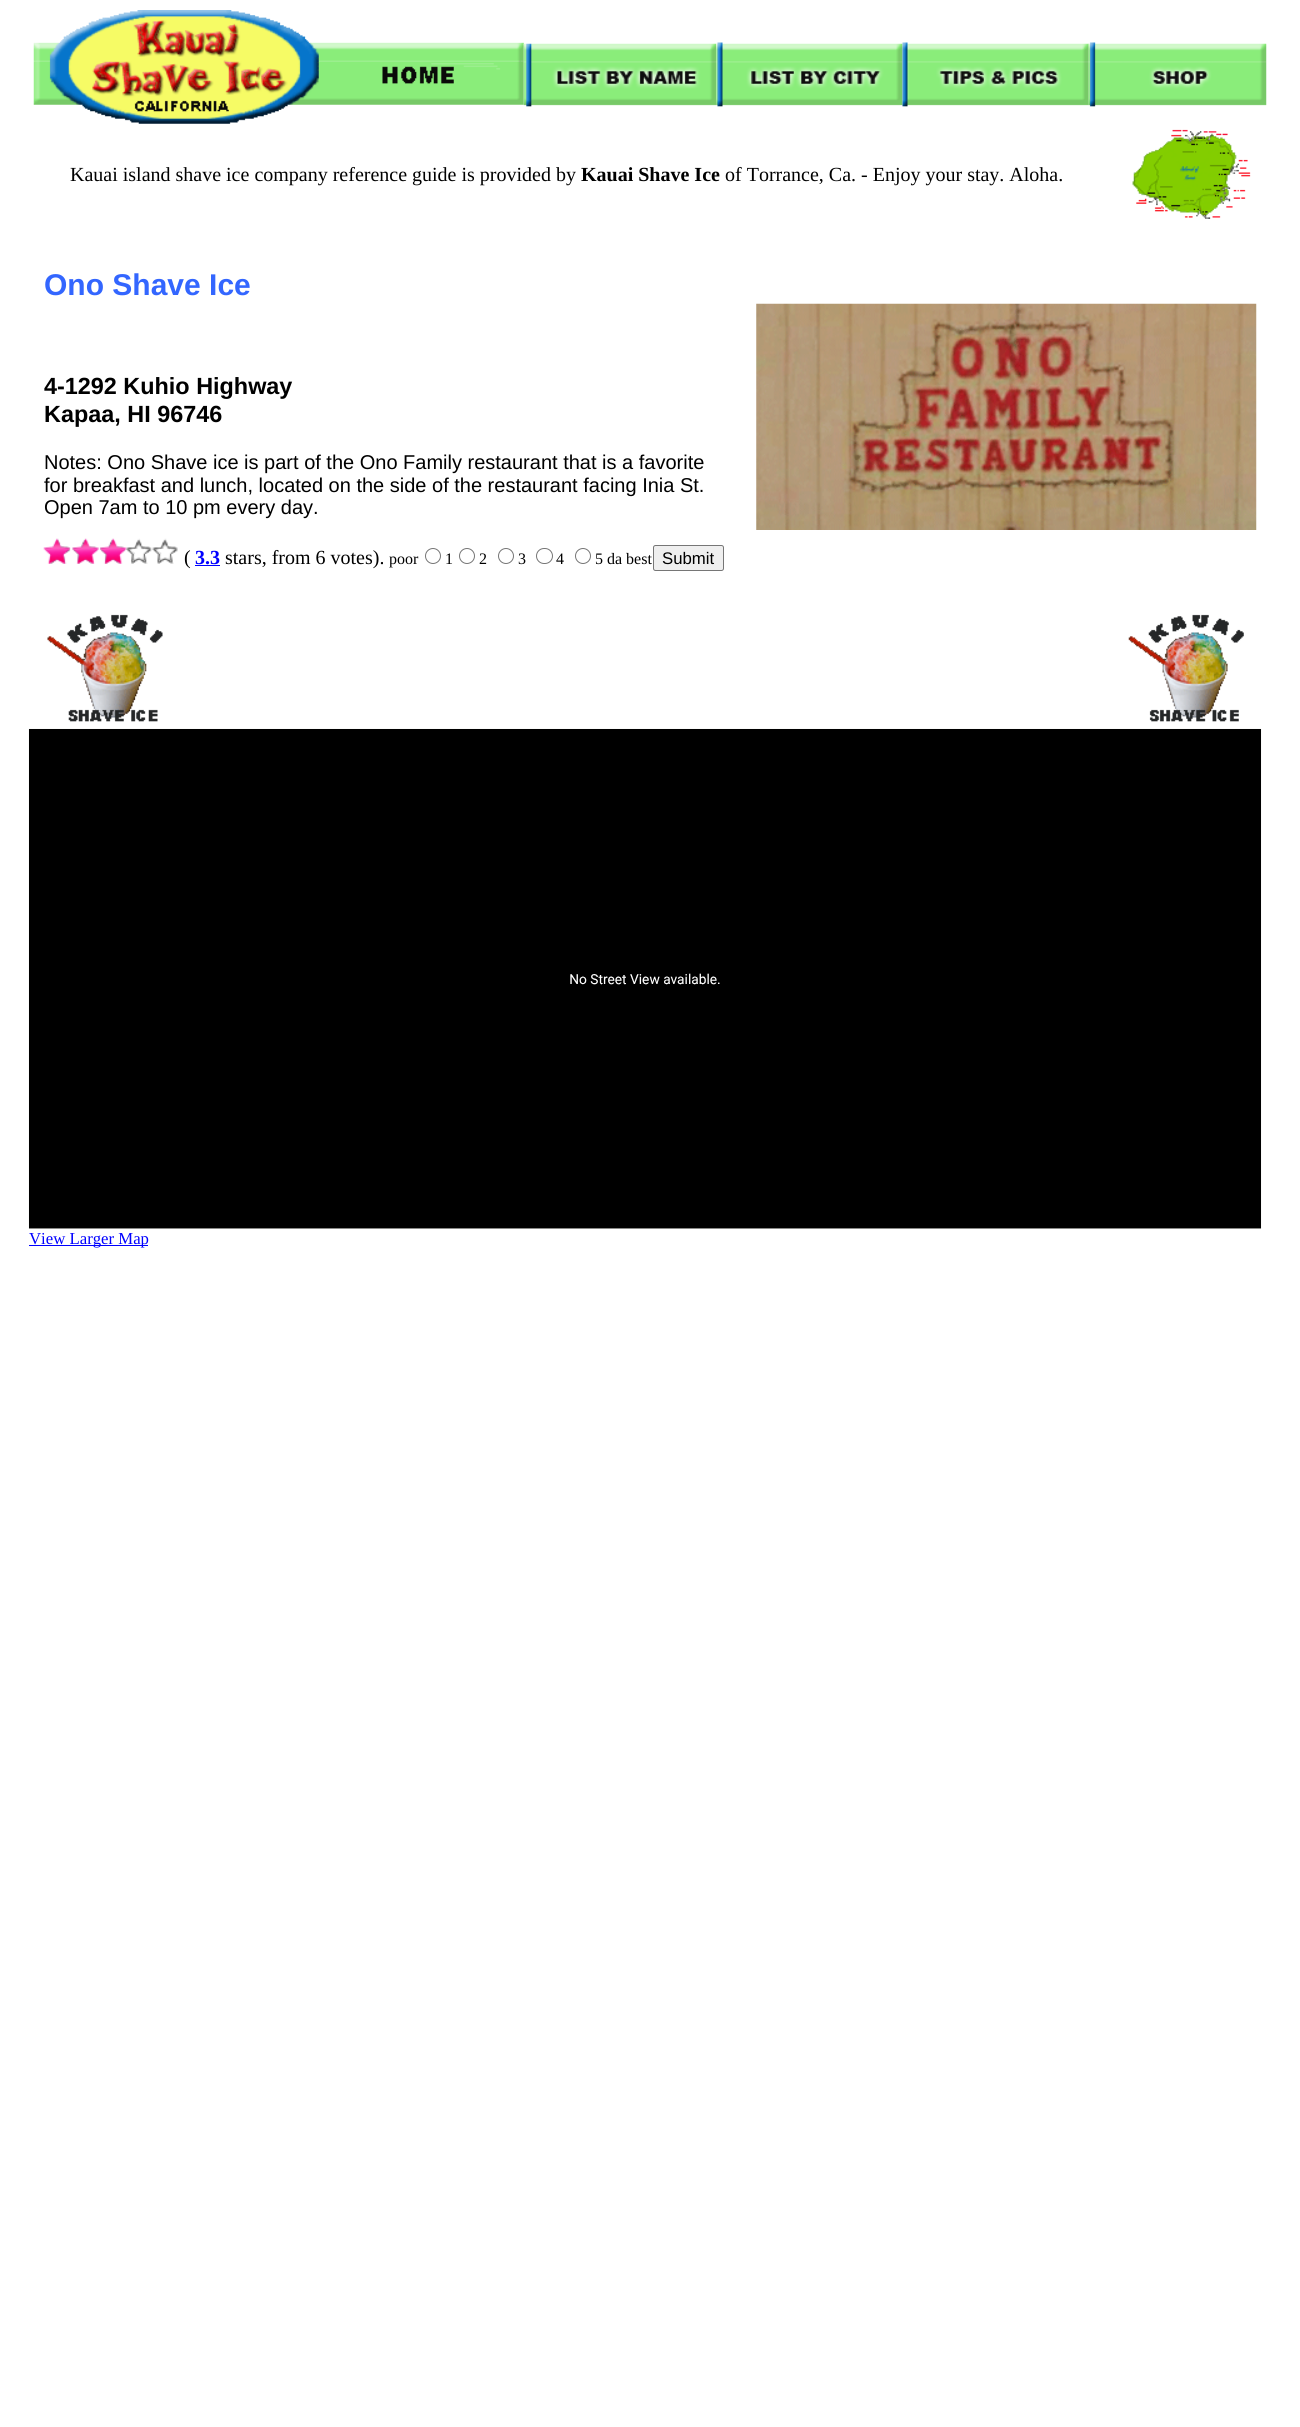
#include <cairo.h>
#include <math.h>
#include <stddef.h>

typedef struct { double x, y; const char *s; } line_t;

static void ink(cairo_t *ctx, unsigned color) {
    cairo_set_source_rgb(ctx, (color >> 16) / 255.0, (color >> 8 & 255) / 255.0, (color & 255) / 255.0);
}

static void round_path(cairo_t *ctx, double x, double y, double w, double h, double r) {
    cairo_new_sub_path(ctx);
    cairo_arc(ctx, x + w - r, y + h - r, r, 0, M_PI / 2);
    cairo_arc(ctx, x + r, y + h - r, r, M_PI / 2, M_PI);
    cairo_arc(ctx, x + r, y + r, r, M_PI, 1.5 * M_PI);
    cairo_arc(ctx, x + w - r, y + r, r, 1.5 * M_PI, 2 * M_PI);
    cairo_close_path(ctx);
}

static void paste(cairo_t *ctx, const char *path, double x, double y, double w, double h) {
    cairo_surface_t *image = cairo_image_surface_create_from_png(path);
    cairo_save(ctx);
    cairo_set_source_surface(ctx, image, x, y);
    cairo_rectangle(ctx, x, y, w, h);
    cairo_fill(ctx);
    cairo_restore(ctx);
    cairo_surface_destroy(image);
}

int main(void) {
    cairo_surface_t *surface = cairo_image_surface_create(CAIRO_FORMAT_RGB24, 1300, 2427);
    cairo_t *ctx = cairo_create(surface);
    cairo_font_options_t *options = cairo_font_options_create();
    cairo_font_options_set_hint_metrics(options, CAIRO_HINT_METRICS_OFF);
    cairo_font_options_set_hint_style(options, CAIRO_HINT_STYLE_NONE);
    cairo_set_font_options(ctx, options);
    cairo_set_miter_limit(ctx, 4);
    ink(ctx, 0xFFFFFF);
    cairo_paint(ctx);
    paste(ctx, "media/1.png", 33, 10, 491, 114);
    paste(ctx, "media/2.png", 523, 43, 194, 64);
    paste(ctx, "media/3.png", 716, 42, 187, 65);
    paste(ctx, "media/4.png", 902, 42, 187, 65);
    paste(ctx, "media/5.png", 1088, 42, 179, 65);
    cairo_select_font_face(ctx, "Liberation Serif", CAIRO_FONT_SLANT_NORMAL, CAIRO_FONT_WEIGHT_NORMAL);
    cairo_set_font_size(ctx, 20);
    ink(ctx, 0x000000);
    cairo_move_to(ctx, 70, 181);
    cairo_show_text(ctx, "Kauai island shave ice company reference guide is provided by");
    cairo_select_font_face(ctx, "Liberation Serif", CAIRO_FONT_SLANT_NORMAL, CAIRO_FONT_WEIGHT_BOLD);
    cairo_move_to(ctx, 581, 181);
    cairo_show_text(ctx, "Kauai Shave Ice");
    cairo_select_font_face(ctx, "Liberation Serif", CAIRO_FONT_SLANT_NORMAL, CAIRO_FONT_WEIGHT_NORMAL);
    cairo_move_to(ctx, 725, 181);
    cairo_show_text(ctx, "of Torrance, Ca. - Enjoy your stay. Aloha.");
    paste(ctx, "media/6.png", 1132, 129, 119, 90);
    cairo_select_font_face(ctx, "Liberation Sans", CAIRO_FONT_SLANT_NORMAL, CAIRO_FONT_WEIGHT_BOLD);
    cairo_set_font_size(ctx, 30);
    ink(ctx, 0x3366FF);
    cairo_move_to(ctx, 44, 295);
    cairo_show_text(ctx, "Ono Shave Ice");
    cairo_set_font_size(ctx, 23.4);
    ink(ctx, 0x000000);
    cairo_move_to(ctx, 44, 394);
    cairo_show_text(ctx, "4-1292 Kuhio Highway");
    cairo_move_to(ctx, 44, 422);
    cairo_show_text(ctx, "Kapaa, HI 96746");
    cairo_select_font_face(ctx, "Liberation Sans", CAIRO_FONT_SLANT_NORMAL, CAIRO_FONT_WEIGHT_NORMAL);
    cairo_set_font_size(ctx, 20);
    {
        static const line_t items[] = {
            {44, 469, "Notes: Ono Shave ice is part of the Ono Family restaurant that is a favorite"},
            {44, 492, "for breakfast and lunch, located on the side of the restaurant facing Inia St."},
            {44, 514, "Open 7am to 10 pm every day."},
        };
        for (size_t i = 0; i < sizeof items / sizeof *items; i++) {
            cairo_move_to(ctx, items[i].x, items[i].y);
            cairo_show_text(ctx, items[i].s);
        }
    }
    paste(ctx, "media/7.png", 43, 538, 135, 26);
    cairo_select_font_face(ctx, "Liberation Serif", CAIRO_FONT_SLANT_NORMAL, CAIRO_FONT_WEIGHT_NORMAL);
    cairo_move_to(ctx, 184, 564);
    cairo_show_text(ctx, "(");
    cairo_select_font_face(ctx, "Liberation Serif", CAIRO_FONT_SLANT_NORMAL, CAIRO_FONT_WEIGHT_BOLD);
    ink(ctx, 0x0000FF);
    cairo_move_to(ctx, 195, 564);
    cairo_show_text(ctx, "3.3");
    cairo_rectangle(ctx, 195, 565, 25, 1);
    cairo_fill(ctx);
    cairo_select_font_face(ctx, "Liberation Serif", CAIRO_FONT_SLANT_NORMAL, CAIRO_FONT_WEIGHT_NORMAL);
    ink(ctx, 0x000000);
    cairo_move_to(ctx, 225, 564);
    cairo_show_text(ctx, "stars, from 6 votes).");
    cairo_set_font_size(ctx, 16);
    cairo_move_to(ctx, 389, 564);
    cairo_show_text(ctx, "poor");
    cairo_new_path(ctx);
    cairo_arc(ctx, 433, 556, 7.5, 0, 2 * M_PI);
    ink(ctx, 0x767676);
    cairo_set_line_width(ctx, 1);
    cairo_stroke(ctx);
    ink(ctx, 0x000000);
    cairo_move_to(ctx, 445, 564);
    cairo_show_text(ctx, "1");
    cairo_new_path(ctx);
    cairo_arc(ctx, 467, 556, 7.5, 0, 2 * M_PI);
    ink(ctx, 0x767676);
    cairo_stroke(ctx);
    ink(ctx, 0x000000);
    cairo_move_to(ctx, 479, 564);
    cairo_show_text(ctx, "2");
    cairo_new_path(ctx);
    cairo_arc(ctx, 506, 556, 7.5, 0, 2 * M_PI);
    ink(ctx, 0x767676);
    cairo_stroke(ctx);
    ink(ctx, 0x000000);
    cairo_move_to(ctx, 518, 564);
    cairo_show_text(ctx, "3");
    round_path(ctx, 536.5, 548.5, 16, 15, 7.5);
    ink(ctx, 0x767676);
    cairo_stroke(ctx);
    ink(ctx, 0x000000);
    cairo_move_to(ctx, 556, 564);
    cairo_show_text(ctx, "4");
    cairo_new_path(ctx);
    cairo_arc(ctx, 583, 556, 7.5, 0, 2 * M_PI);
    ink(ctx, 0x767676);
    cairo_stroke(ctx);
    ink(ctx, 0x000000);
    cairo_move_to(ctx, 595, 564);
    cairo_show_text(ctx, "5 da best");
    ink(ctx, 0xEFEFEF);
    round_path(ctx, 653.5, 545.5, 70, 25, 2);
    cairo_fill_preserve(ctx);
    ink(ctx, 0x767676);
    cairo_stroke(ctx);
    cairo_select_font_face(ctx, "Liberation Sans", CAIRO_FONT_SLANT_NORMAL, CAIRO_FONT_WEIGHT_NORMAL);
    cairo_set_font_size(ctx, 16.75);
    ink(ctx, 0x000000);
    cairo_move_to(ctx, 662, 564);
    cairo_show_text(ctx, "Submit");
    paste(ctx, "media/8.png", 756, 303, 501, 227);
    paste(ctx, "media/9.png", 47, 614, 116, 108);
    paste(ctx, "media/10.png", 1128, 614, 116, 108);
    paste(ctx, "media/11.png", 28, 728, 1234, 501);
    ink(ctx, 0x0000FF);
    cairo_rectangle(ctx, 29, 1245, 119, 1);
    cairo_fill(ctx);
    cairo_select_font_face(ctx, "Liberation Serif", CAIRO_FONT_SLANT_NORMAL, CAIRO_FONT_WEIGHT_NORMAL);
    cairo_move_to(ctx, 29, 1244);
    cairo_show_text(ctx, "View Larger Map");
    cairo_surface_write_to_png(surface, "image.png");
    cairo_font_options_destroy(options);
    cairo_destroy(ctx);
    cairo_surface_destroy(surface);
    return 0;
}
